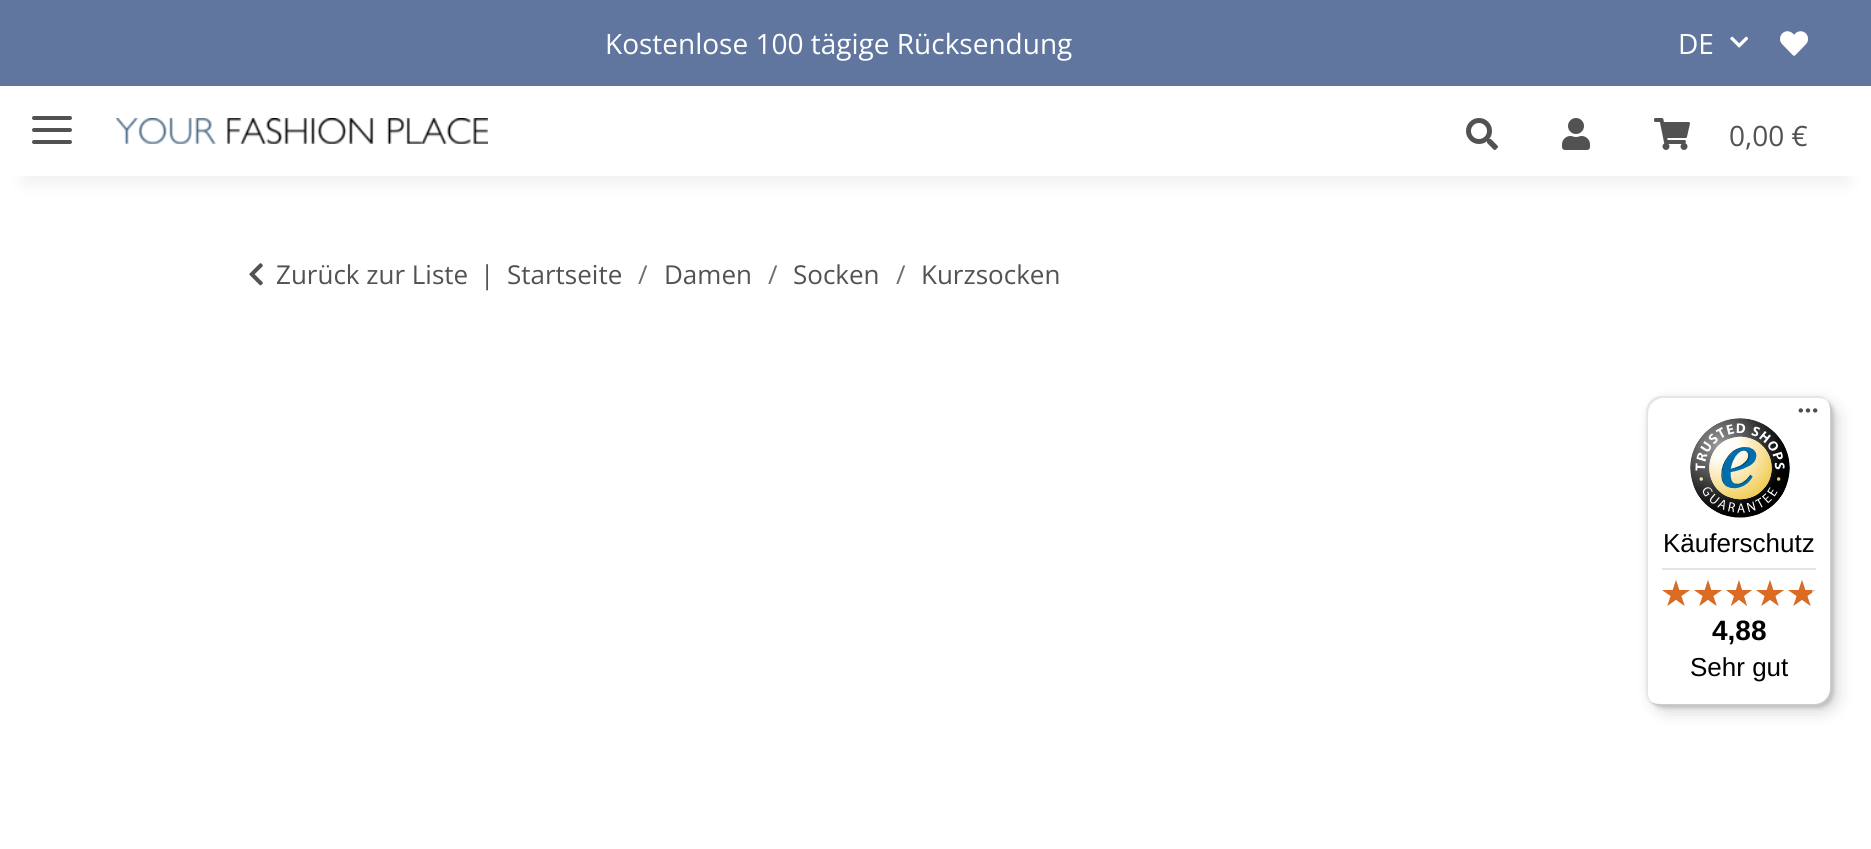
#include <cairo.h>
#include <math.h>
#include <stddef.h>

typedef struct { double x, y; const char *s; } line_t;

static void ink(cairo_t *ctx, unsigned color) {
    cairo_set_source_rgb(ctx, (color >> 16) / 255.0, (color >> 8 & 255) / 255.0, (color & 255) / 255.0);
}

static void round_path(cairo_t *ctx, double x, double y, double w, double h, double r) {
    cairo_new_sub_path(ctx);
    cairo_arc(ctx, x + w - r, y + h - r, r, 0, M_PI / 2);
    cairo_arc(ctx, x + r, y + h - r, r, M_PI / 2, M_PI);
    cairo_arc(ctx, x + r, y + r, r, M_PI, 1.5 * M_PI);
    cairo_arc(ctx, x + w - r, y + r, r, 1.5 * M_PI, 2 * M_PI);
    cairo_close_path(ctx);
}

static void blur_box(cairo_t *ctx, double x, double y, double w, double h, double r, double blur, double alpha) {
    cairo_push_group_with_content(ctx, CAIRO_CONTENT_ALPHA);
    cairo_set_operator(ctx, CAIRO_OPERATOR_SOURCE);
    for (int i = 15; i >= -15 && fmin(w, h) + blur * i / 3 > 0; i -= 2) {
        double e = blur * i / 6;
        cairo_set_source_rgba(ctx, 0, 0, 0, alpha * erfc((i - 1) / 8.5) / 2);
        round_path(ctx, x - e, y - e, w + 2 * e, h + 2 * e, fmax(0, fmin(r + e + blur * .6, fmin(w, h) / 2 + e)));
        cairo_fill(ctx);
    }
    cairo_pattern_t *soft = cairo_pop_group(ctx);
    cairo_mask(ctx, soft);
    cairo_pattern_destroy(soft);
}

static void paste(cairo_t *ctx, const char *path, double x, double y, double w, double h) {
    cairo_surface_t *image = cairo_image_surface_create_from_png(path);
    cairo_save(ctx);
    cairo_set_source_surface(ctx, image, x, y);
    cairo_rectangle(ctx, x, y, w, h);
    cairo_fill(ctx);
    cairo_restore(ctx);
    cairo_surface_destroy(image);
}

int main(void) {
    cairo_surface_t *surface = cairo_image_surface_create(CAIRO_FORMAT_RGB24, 1871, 849);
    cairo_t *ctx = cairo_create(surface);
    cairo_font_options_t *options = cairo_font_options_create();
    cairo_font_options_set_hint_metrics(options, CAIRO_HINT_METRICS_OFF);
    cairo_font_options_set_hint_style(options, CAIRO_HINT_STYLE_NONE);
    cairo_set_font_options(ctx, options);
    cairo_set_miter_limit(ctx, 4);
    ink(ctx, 0x61769E);
    cairo_paint(ctx);
    cairo_select_font_face(ctx, "Open Sans", CAIRO_FONT_SLANT_NORMAL, CAIRO_FONT_WEIGHT_NORMAL);
    cairo_set_font_size(ctx, 28);
    ink(ctx, 0xFFFFFF);
    cairo_move_to(ctx, 605, 54);
    cairo_show_text(ctx, "Kostenlose 100 tägige Rücksendung");
    cairo_move_to(ctx, 1678, 54);
    cairo_show_text(ctx, "DE");
    paste(ctx, "media/1.png", 1730, 36, 19, 12);
    paste(ctx, "media/2.png", 1780, 31, 29, 25);
    cairo_rectangle(ctx, 0, 176, 1871, 673);
    cairo_fill(ctx);
    ink(ctx, 0x000000);
    blur_box(ctx, 24, 142, 1824, 42, 0, 9, 0.06);
    ink(ctx, 0xFFFFFF);
    cairo_rectangle(ctx, 0, 86, 1871, 90);
    cairo_fill(ctx);
    ink(ctx, 0x525252);
    round_path(ctx, 32, 128, 40, 4, 2);
    cairo_fill(ctx);
    round_path(ctx, 32, 116, 40, 4, 2);
    cairo_fill(ctx);
    round_path(ctx, 32, 140, 40, 4, 2);
    cairo_fill(ctx);
    paste(ctx, "media/3.png", 116, 118, 372, 26);
    paste(ctx, "media/4.png", 1466, 118, 32, 32);
    paste(ctx, "media/5.png", 1562, 118, 28, 32);
    paste(ctx, "media/6.png", 1654, 118, 36, 32);
    cairo_move_to(ctx, 1729, 146);
    cairo_show_text(ctx, "0,00 €");
    paste(ctx, "media/7.png", 249, 263, 14, 23);
    cairo_set_font_size(ctx, 26);
    {
        static const line_t items[] = {
            {276, 284, "Zurück zur Liste"},
            {480, 284, "|"},
            {507, 284, "Startseite"},
        };
        for (size_t i = 0; i < sizeof items / sizeof *items; i++) {
            cairo_move_to(ctx, items[i].x, items[i].y);
            cairo_show_text(ctx, items[i].s);
        }
    }
    ink(ctx, 0x707070);
    cairo_move_to(ctx, 638, 284);
    cairo_show_text(ctx, "/");
    ink(ctx, 0x525252);
    cairo_move_to(ctx, 664, 284);
    cairo_show_text(ctx, "Damen");
    ink(ctx, 0x707070);
    cairo_move_to(ctx, 768, 284);
    cairo_show_text(ctx, "/");
    ink(ctx, 0x525252);
    cairo_move_to(ctx, 793, 284);
    cairo_show_text(ctx, "Socken");
    ink(ctx, 0x707070);
    cairo_move_to(ctx, 896, 284);
    cairo_show_text(ctx, "/");
    ink(ctx, 0x525252);
    cairo_move_to(ctx, 921, 284);
    cairo_show_text(ctx, "Kurzsocken");
    ink(ctx, 0x000000);
    blur_box(ctx, 1652, 402, 186, 310, 16, 8, 0.15);
    blur_box(ctx, 1648, 398, 186, 310, 16, 2, 0.15);
    ink(ctx, 0xFFFFFF);
    round_path(ctx, 1646, 396, 186, 310, 16);
    cairo_fill(ctx);
    cairo_set_source_rgba(ctx, 0, 0, 0, 0.1);
    cairo_new_path(ctx);
    cairo_move_to(ctx, 1664, 398);
    cairo_line_to(ctx, 1818, 398);
    cairo_curve_to(ctx, 1822, 398, 1825, 399, 1828, 401);
    cairo_curve_to(ctx, 1825, 398, 1821, 396, 1816, 396);
    cairo_line_to(ctx, 1662, 396);
    cairo_curve_to(ctx, 1653, 396, 1646, 403, 1646, 412);
    cairo_line_to(ctx, 1646, 690);
    cairo_curve_to(ctx, 1646, 695, 1648, 699, 1651, 702);
    cairo_curve_to(ctx, 1649, 699, 1648, 696, 1648, 692);
    cairo_line_to(ctx, 1648, 414);
    cairo_curve_to(ctx, 1648, 405, 1655, 398, 1664, 398);
    cairo_close_path(ctx);
    cairo_fill(ctx);
    cairo_set_source_rgba(ctx, 0, 0, 0, 0.2);
    cairo_new_path(ctx);
    cairo_move_to(ctx, 1650, 701);
    cairo_curve_to(ctx, 1653, 704, 1657, 706, 1662, 706);
    cairo_line_to(ctx, 1816, 706);
    cairo_curve_to(ctx, 1825, 706, 1832, 699, 1832, 690);
    cairo_line_to(ctx, 1832, 412);
    cairo_curve_to(ctx, 1832, 407, 1830, 403, 1827, 400);
    cairo_curve_to(ctx, 1829, 403, 1830, 406, 1830, 410);
    cairo_line_to(ctx, 1830, 688);
    cairo_curve_to(ctx, 1830, 697, 1823, 704, 1814, 704);
    cairo_line_to(ctx, 1660, 704);
    cairo_curve_to(ctx, 1656, 704, 1653, 703, 1650, 701);
    cairo_close_path(ctx);
    cairo_fill(ctx);
    cairo_set_source_rgba(ctx, 0.196, 0.196, 0.196, 0.2);
    cairo_new_path(ctx);
    cairo_move_to(ctx, 1651, 701);
    cairo_curve_to(ctx, 1654, 704, 1658, 706, 1662, 706);
    cairo_line_to(ctx, 1816, 706);
    cairo_curve_to(ctx, 1825, 706, 1832, 699, 1832, 690);
    cairo_line_to(ctx, 1832, 412);
    cairo_curve_to(ctx, 1832, 408, 1830, 404, 1827, 401);
    cairo_curve_to(ctx, 1830, 404, 1831, 407, 1831, 411);
    cairo_line_to(ctx, 1831, 689);
    cairo_curve_to(ctx, 1831, 698, 1824, 705, 1815, 705);
    cairo_line_to(ctx, 1661, 705);
    cairo_curve_to(ctx, 1657, 705, 1654, 704, 1651, 701);
    cairo_close_path(ctx);
    cairo_fill(ctx);
    cairo_set_source_rgba(ctx, 1, 1, 1, 0.3);
    cairo_new_path(ctx);
    cairo_move_to(ctx, 1651, 701);
    cairo_curve_to(ctx, 1654, 704, 1658, 706, 1662, 706);
    cairo_line_to(ctx, 1816, 706);
    cairo_curve_to(ctx, 1825, 706, 1832, 699, 1832, 690);
    cairo_line_to(ctx, 1832, 412);
    cairo_curve_to(ctx, 1832, 408, 1830, 404, 1827, 401);
    cairo_curve_to(ctx, 1830, 404, 1831, 407, 1831, 411);
    cairo_line_to(ctx, 1831, 689);
    cairo_curve_to(ctx, 1831, 698, 1824, 705, 1815, 705);
    cairo_line_to(ctx, 1661, 705);
    cairo_curve_to(ctx, 1657, 705, 1654, 704, 1651, 701);
    cairo_close_path(ctx);
    cairo_fill(ctx);
    paste(ctx, "media/8.png", 1798, 408, 20, 5);
    paste(ctx, "media/9.png", 1690, 418, 100, 100);
    cairo_select_font_face(ctx, "Liberation Sans", CAIRO_FONT_SLANT_NORMAL, CAIRO_FONT_WEIGHT_NORMAL);
    ink(ctx, 0x000000);
    cairo_move_to(ctx, 1663, 552);
    cairo_show_text(ctx, "Käuferschutz");
    ink(ctx, 0xE5E5E5);
    cairo_rectangle(ctx, 1662, 568, 154, 2);
    cairo_fill(ctx);
    paste(ctx, "media/10.png", 1662, 580, 28, 26);
    paste(ctx, "media/10.png", 1694, 580, 28, 26);
    paste(ctx, "media/11.png", 1726, 580, 26, 26);
    paste(ctx, "media/10.png", 1756, 580, 28, 26);
    paste(ctx, "media/10.png", 1788, 580, 28, 26);
    paste(ctx, "media/12.png", 1662, 580, 28, 26);
    paste(ctx, "media/12.png", 1694, 580, 28, 26);
    paste(ctx, "media/13.png", 1726, 580, 26, 26);
    paste(ctx, "media/12.png", 1756, 580, 28, 26);
    paste(ctx, "media/14.png", 1788, 580, 24, 26);
    cairo_select_font_face(ctx, "Liberation Sans", CAIRO_FONT_SLANT_NORMAL, CAIRO_FONT_WEIGHT_BOLD);
    cairo_set_font_size(ctx, 28);
    ink(ctx, 0x000000);
    cairo_move_to(ctx, 1712, 640);
    cairo_show_text(ctx, "4,88");
    cairo_select_font_face(ctx, "Liberation Sans", CAIRO_FONT_SLANT_NORMAL, CAIRO_FONT_WEIGHT_NORMAL);
    cairo_set_font_size(ctx, 26);
    cairo_move_to(ctx, 1690, 676);
    cairo_show_text(ctx, "Sehr gut");
    cairo_surface_write_to_png(surface, "image.png");
    cairo_font_options_destroy(options);
    cairo_destroy(ctx);
    cairo_surface_destroy(surface);
    return 0;
}
